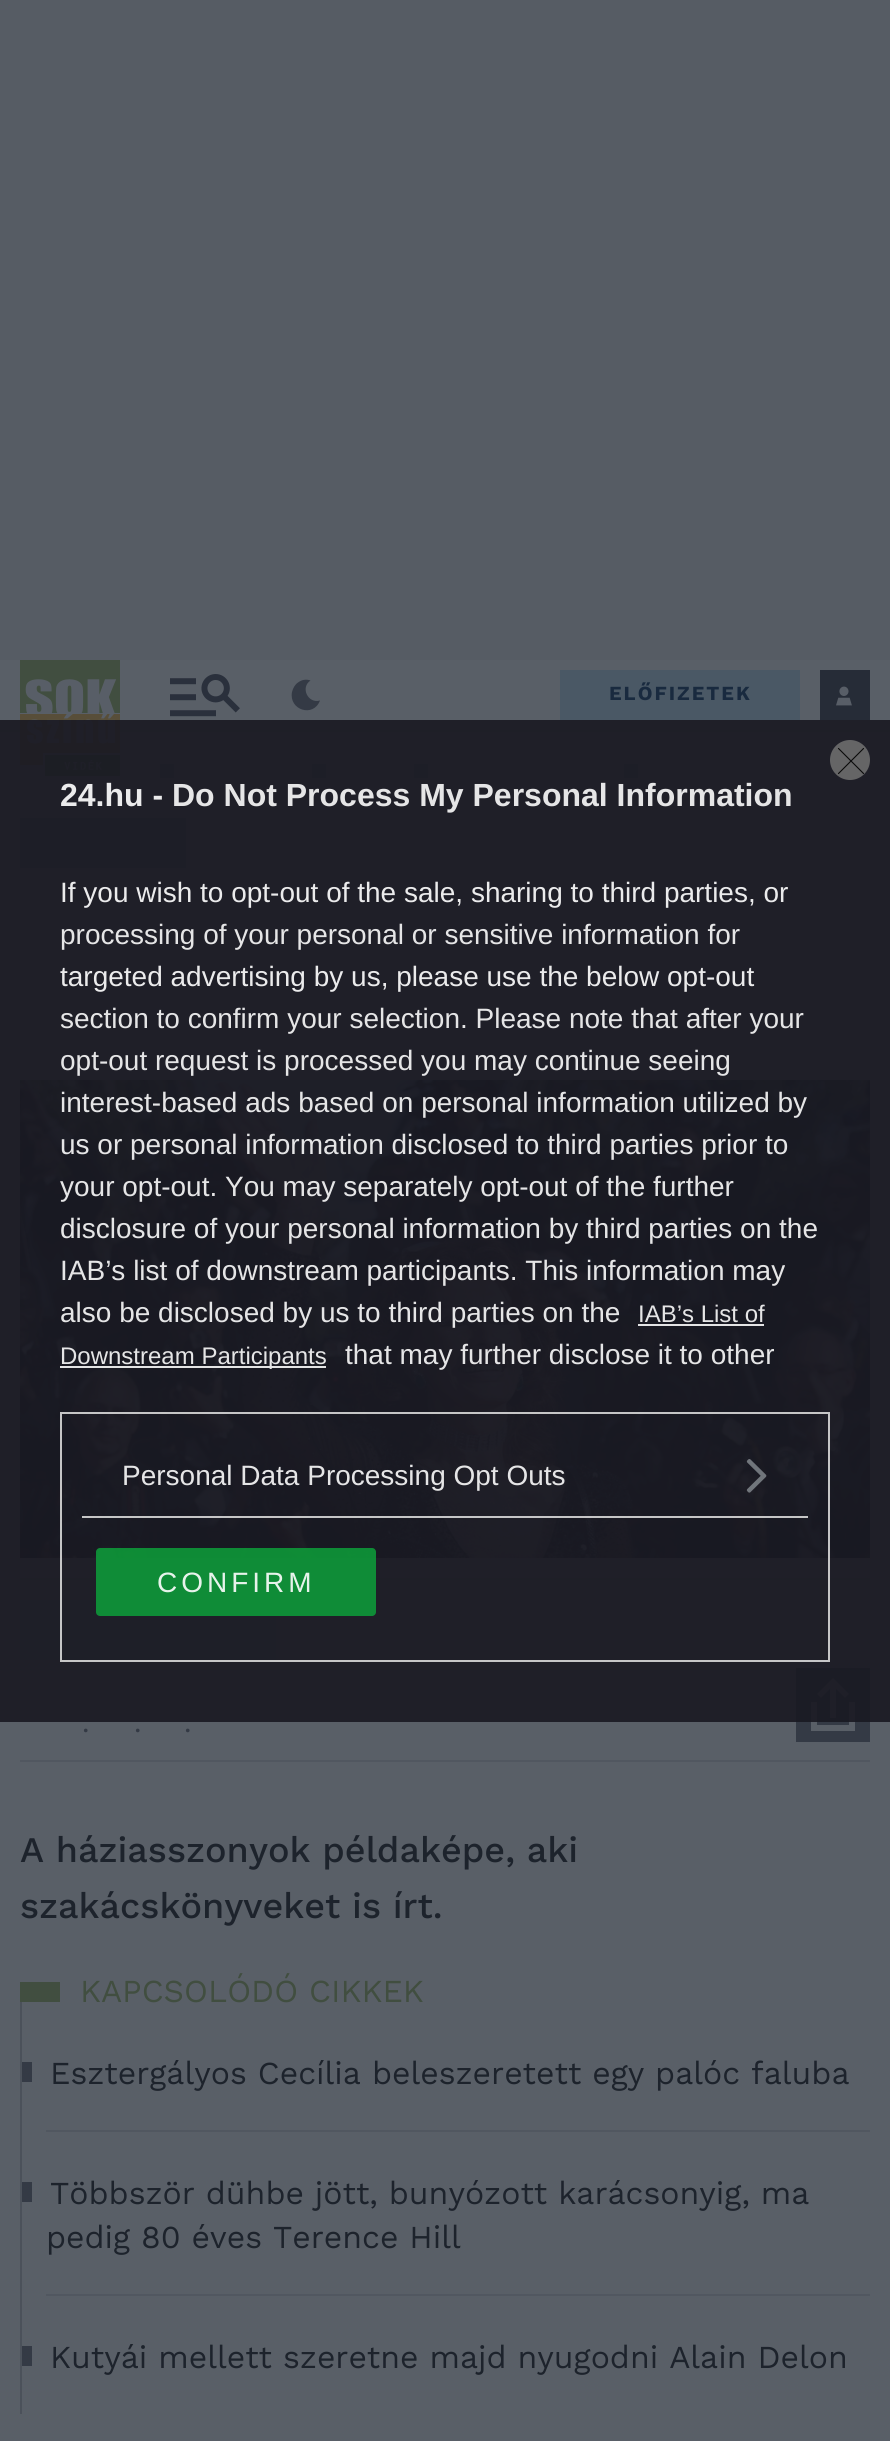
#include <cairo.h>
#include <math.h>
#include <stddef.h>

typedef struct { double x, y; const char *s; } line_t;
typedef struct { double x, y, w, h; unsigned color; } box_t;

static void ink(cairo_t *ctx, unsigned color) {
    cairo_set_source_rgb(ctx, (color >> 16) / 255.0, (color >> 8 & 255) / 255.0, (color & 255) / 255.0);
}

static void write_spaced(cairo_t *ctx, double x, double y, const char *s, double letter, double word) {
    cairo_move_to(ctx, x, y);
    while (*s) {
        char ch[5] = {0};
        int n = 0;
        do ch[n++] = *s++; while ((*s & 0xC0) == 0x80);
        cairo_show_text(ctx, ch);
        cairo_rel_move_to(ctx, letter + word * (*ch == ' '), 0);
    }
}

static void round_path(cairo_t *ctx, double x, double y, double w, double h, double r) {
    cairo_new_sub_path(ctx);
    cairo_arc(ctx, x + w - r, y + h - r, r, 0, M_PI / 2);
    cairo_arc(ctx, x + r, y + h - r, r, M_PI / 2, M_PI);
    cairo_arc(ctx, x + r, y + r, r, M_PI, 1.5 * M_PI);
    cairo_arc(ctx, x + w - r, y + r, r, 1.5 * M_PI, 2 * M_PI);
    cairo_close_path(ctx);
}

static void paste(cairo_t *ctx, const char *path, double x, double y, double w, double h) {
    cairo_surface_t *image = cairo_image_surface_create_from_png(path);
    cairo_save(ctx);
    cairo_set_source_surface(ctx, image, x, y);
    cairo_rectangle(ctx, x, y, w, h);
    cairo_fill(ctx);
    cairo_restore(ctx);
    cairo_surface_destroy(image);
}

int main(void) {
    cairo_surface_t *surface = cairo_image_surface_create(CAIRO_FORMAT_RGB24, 890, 2441);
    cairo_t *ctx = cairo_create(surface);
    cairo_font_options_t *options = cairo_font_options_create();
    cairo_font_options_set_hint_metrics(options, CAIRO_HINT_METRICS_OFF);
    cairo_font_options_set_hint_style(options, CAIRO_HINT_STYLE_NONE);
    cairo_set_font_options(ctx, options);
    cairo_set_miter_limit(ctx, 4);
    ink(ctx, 0x595F67);
    cairo_paint(ctx);
    ink(ctx, 0x565C64);
    cairo_rectangle(ctx, 0, 0, 890, 660);
    cairo_fill(ctx);
    ink(ctx, 0x515760);
    cairo_rectangle(ctx, 0, 730, 890, 2);
    cairo_fill(ctx);
    paste(ctx, "media/1.png", 20, 660, 100, 116);
    paste(ctx, "media/2.png", 170, 674, 70, 43);
    ink(ctx, 0x343A45);
    cairo_set_fill_rule(ctx, CAIRO_FILL_RULE_EVEN_ODD);
    cairo_new_path(ctx);
    cairo_move_to(ctx, 320, 700.5);
    cairo_curve_to(ctx, 308, 704, 300, 687.5, 310.5, 680.5);
    cairo_curve_to(ctx, 306.5, 679, 302, 679.5, 298, 682.5);
    cairo_curve_to(ctx, 295, 684.5, 293, 688, 292, 692);
    cairo_curve_to(ctx, 288.5, 710, 313.5, 718, 320, 700.5);
    cairo_close_path(ctx);
    cairo_fill(ctx);
    ink(ctx, 0x4A5865);
    cairo_rectangle(ctx, 560, 670, 240, 50);
    cairo_fill(ctx);
    cairo_select_font_face(ctx, "Work Sans", CAIRO_FONT_SLANT_NORMAL, CAIRO_FONT_WEIGHT_BOLD);
    cairo_set_font_size(ctx, 20);
    ink(ctx, 0x192A3F);
    write_spaced(ctx, 609, 700, "ELŐFIZETEK", 2, 0);
    ink(ctx, 0x262C37);
    cairo_rectangle(ctx, 820, 670, 50, 50);
    cairo_fill(ctx);
    paste(ctx, "media/3.png", 836, 686, 16, 20);
    {
        static const box_t items[] = {
            {160, 764, 14, 14, 0x4B515A},
            {312, 764, 14, 14, 0x4B515A},
            {414, 764, 14, 14, 0x4B515A},
            {624, 764, 14, 14, 0x4B515A},
            {20, 818, 166, 50, 0x4B515A},
        };
        for (size_t i = 0; i < sizeof items / sizeof *items; i++) {
            ink(ctx, items[i].color);
            cairo_rectangle(ctx, items[i].x, items[i].y, items[i].w, items[i].h);
            cairo_fill(ctx);
        }
    }
    paste(ctx, "media/4.png", 20, 1080, 850, 478);
    {
        static const box_t items[] = {
            {20, 1578, 850, 2, 0x515760},
            {20, 1760, 850, 2, 0x515760},
            {20, 1600, 256, 60, 0x565C64},
        };
        for (size_t i = 0; i < sizeof items / sizeof *items; i++) {
            ink(ctx, items[i].color);
            cairo_rectangle(ctx, items[i].x, items[i].y, items[i].w, items[i].h);
            cairo_fill(ctx);
        }
    }
    cairo_select_font_face(ctx, "Work Sans", CAIRO_FONT_SLANT_NORMAL, CAIRO_FONT_WEIGHT_NORMAL);
    cairo_set_font_size(ctx, 28);
    ink(ctx, 0x343A45);
    {
        static const line_t items[] = {
            {82, 1732, "."},
            {134, 1732, "."},
            {184, 1732, "."},
        };
        for (size_t i = 0; i < sizeof items / sizeof *items; i++) {
            cairo_move_to(ctx, items[i].x, items[i].y);
            cairo_show_text(ctx, items[i].s);
        }
    }
    cairo_new_path(ctx);
    cairo_move_to(ctx, 796, 1668);
    cairo_line_to(ctx, 870, 1668);
    cairo_line_to(ctx, 870, 1742);
    cairo_line_to(ctx, 796, 1742);
    cairo_close_path(ctx);
    cairo_move_to(ctx, 849, 1694);
    cairo_line_to(ctx, 833, 1678);
    cairo_line_to(ctx, 817, 1694);
    cairo_line_to(ctx, 821, 1698);
    cairo_line_to(ctx, 830, 1689);
    cairo_line_to(ctx, 830, 1718);
    cairo_line_to(ctx, 836, 1718);
    cairo_line_to(ctx, 836, 1689);
    cairo_line_to(ctx, 845, 1698);
    cairo_close_path(ctx);
    cairo_move_to(ctx, 817, 1702);
    cairo_line_to(ctx, 817, 1725);
    cairo_line_to(ctx, 849, 1725);
    cairo_line_to(ctx, 849, 1702);
    cairo_line_to(ctx, 855, 1702);
    cairo_line_to(ctx, 855, 1731);
    cairo_line_to(ctx, 811, 1731);
    cairo_line_to(ctx, 811, 1702);
    cairo_close_path(ctx);
    cairo_fill(ctx);
    cairo_select_font_face(ctx, "Work Sans Medium", CAIRO_FONT_SLANT_NORMAL, CAIRO_FONT_WEIGHT_NORMAL);
    cairo_set_font_size(ctx, 36);
    ink(ctx, 0x1D232C);
    cairo_move_to(ctx, 20, 1862);
    cairo_show_text(ctx, "A háziasszonyok példaképe, aki");
    cairo_move_to(ctx, 20, 1918);
    cairo_show_text(ctx, "szakácskönyveket is írt.");
    ink(ctx, 0x4B515A);
    cairo_rectangle(ctx, 20, 2002, 2, 412);
    cairo_fill(ctx);
    ink(ctx, 0x414E40);
    cairo_rectangle(ctx, 20, 1982, 40, 20);
    cairo_fill(ctx);
    cairo_select_font_face(ctx, "Work Sans", CAIRO_FONT_SLANT_NORMAL, CAIRO_FONT_WEIGHT_NORMAL);
    cairo_set_font_size(ctx, 32);
    cairo_move_to(ctx, 80, 2002);
    cairo_show_text(ctx, "KAPCSOLÓDÓ CIKKEK");
    ink(ctx, 0x515760);
    cairo_rectangle(ctx, 46, 2130, 824, 2);
    cairo_fill(ctx);
    ink(ctx, 0x343A45);
    cairo_rectangle(ctx, 22, 2062, 10, 20);
    cairo_fill(ctx);
    ink(ctx, 0x1D232C);
    cairo_move_to(ctx, 50, 2084);
    cairo_show_text(ctx, "Esztergályos Cecília beleszeretett egy palóc faluba");
    ink(ctx, 0x515760);
    cairo_rectangle(ctx, 46, 2294, 824, 2);
    cairo_fill(ctx);
    ink(ctx, 0x343A45);
    cairo_rectangle(ctx, 22, 2182, 10, 20);
    cairo_fill(ctx);
    ink(ctx, 0x1D232C);
    cairo_move_to(ctx, 50, 2204);
    cairo_show_text(ctx, "Többször dühbe jött, bunyózott karácsonyig, ma");
    cairo_move_to(ctx, 46, 2248);
    cairo_show_text(ctx, "pedig 80 éves Terence Hill");
    ink(ctx, 0x343A45);
    cairo_rectangle(ctx, 22, 2346, 10, 20);
    cairo_fill(ctx);
    ink(ctx, 0x1D232C);
    cairo_move_to(ctx, 50, 2368);
    cairo_show_text(ctx, "Kutyái mellett szeretne majd nyugodni Alain Delon");
    cairo_set_source_rgba(ctx, 0.098, 0.098, 0.133, 0.9);
    cairo_rectangle(ctx, 0, 720, 890, 1002);
    cairo_fill(ctx);
    ink(ctx, 0x656566);
    cairo_arc(ctx, 850, 760, 20, 0, 2 * M_PI);
    cairo_fill(ctx);
    cairo_new_path(ctx);
    cairo_move_to(ctx, 838.5, 748.5);
    cairo_line_to(ctx, 863.5, 773.5);
    cairo_move_to(ctx, 863.5, 748.5);
    cairo_line_to(ctx, 838.5, 773.5);
    ink(ctx, 0x09090A);
    cairo_set_line_width(ctx, 1.1);
    cairo_set_line_cap(ctx, CAIRO_LINE_CAP_ROUND);
    cairo_set_line_join(ctx, CAIRO_LINE_JOIN_ROUND);
    cairo_stroke(ctx);
    cairo_select_font_face(ctx, "Liberation Sans", CAIRO_FONT_SLANT_NORMAL, CAIRO_FONT_WEIGHT_BOLD);
    ink(ctx, 0xEBEBEC);
    cairo_move_to(ctx, 60, 806);
    cairo_show_text(ctx, "24.hu -");
    ink(ctx, 0xE5E5E6);
    cairo_move_to(ctx, 172, 806);
    cairo_show_text(ctx, "Do Not Process My Personal Information");
    cairo_select_font_face(ctx, "Liberation Sans", CAIRO_FONT_SLANT_NORMAL, CAIRO_FONT_WEIGHT_NORMAL);
    cairo_set_font_size(ctx, 28);
    ink(ctx, 0xEBEBEC);
    cairo_move_to(ctx, 60, 902);
    cairo_show_text(ctx, "If you wish to opt-out of the sale, sharing to third parties, or");
    ink(ctx, 0xE5E5E6);
    cairo_move_to(ctx, 60, 944);
    cairo_show_text(ctx, "processing of your personal or sensitive information for");
    ink(ctx, 0xEBEBEC);
    cairo_move_to(ctx, 60, 986);
    cairo_show_text(ctx, "targeted advertising by us, please use the below opt-out");
    ink(ctx, 0xE5E5E6);
    {
        static const line_t items[] = {
            {60, 1028, "section to confirm your selection. Please note that after your"},
            {60, 1070, "opt-out request is processed you may continue seeing"},
            {60, 1112, "interest-based ads based on personal information utilized by"},
            {60, 1154, "us or personal information disclosed to third parties prior to"},
            {60, 1196, "your opt-out. You may separately opt-out of the further"},
            {60, 1238, "disclosure of your personal information by third parties on the"},
            {60, 1280, "IAB’s list of downstream participants. This information may"},
            {60, 1322, "also be disclosed by us to third parties on the"},
        };
        for (size_t i = 0; i < sizeof items / sizeof *items; i++) {
            cairo_move_to(ctx, items[i].x, items[i].y);
            cairo_show_text(ctx, items[i].s);
        }
    }
    cairo_set_font_size(ctx, 24);
    cairo_move_to(ctx, 638, 1322);
    cairo_show_text(ctx, "IAB’s List of");
    ink(ctx, 0xE4E4E5);
    cairo_rectangle(ctx, 638, 1324, 126, 2);
    cairo_fill(ctx);
    cairo_set_source_rgba(ctx, 0.984, 0.984, 0.984, 0.9);
    cairo_rectangle(ctx, 60, 1366, 266, 2);
    cairo_fill(ctx);
    ink(ctx, 0xE5E5E6);
    cairo_move_to(ctx, 60, 1364);
    cairo_show_text(ctx, "Downstream Participants");
    cairo_set_font_size(ctx, 28);
    cairo_move_to(ctx, 345, 1364);
    cairo_show_text(ctx, "that may further disclose it to other");
    cairo_rectangle(ctx, 61, 1413, 768, 248);
    cairo_set_source_rgba(ctx, 0.847, 0.847, 0.847, 0.9);
    cairo_set_line_width(ctx, 2);
    cairo_set_line_cap(ctx, CAIRO_LINE_CAP_BUTT);
    cairo_set_line_join(ctx, CAIRO_LINE_JOIN_MITER);
    cairo_stroke(ctx);
    cairo_rectangle(ctx, 82, 1516, 726, 2);
    cairo_fill(ctx);
    ink(ctx, 0xE5E5E6);
    cairo_move_to(ctx, 122, 1485);
    cairo_show_text(ctx, "Personal Data Processing Opt Outs");
    paste(ctx, "media/5.png", 746, 1459, 21, 34);
    cairo_set_source_rgba(ctx, 0.055, 0.596, 0.224, 0.9);
    round_path(ctx, 96, 1548, 280, 68, 4);
    cairo_fill(ctx);
    ink(ctx, 0xE7F3EB);
    write_spaced(ctx, 157, 1592, "CONFIRM", 4, 0);
    cairo_surface_write_to_png(surface, "image.png");
    cairo_font_options_destroy(options);
    cairo_destroy(ctx);
    cairo_surface_destroy(surface);
    return 0;
}
